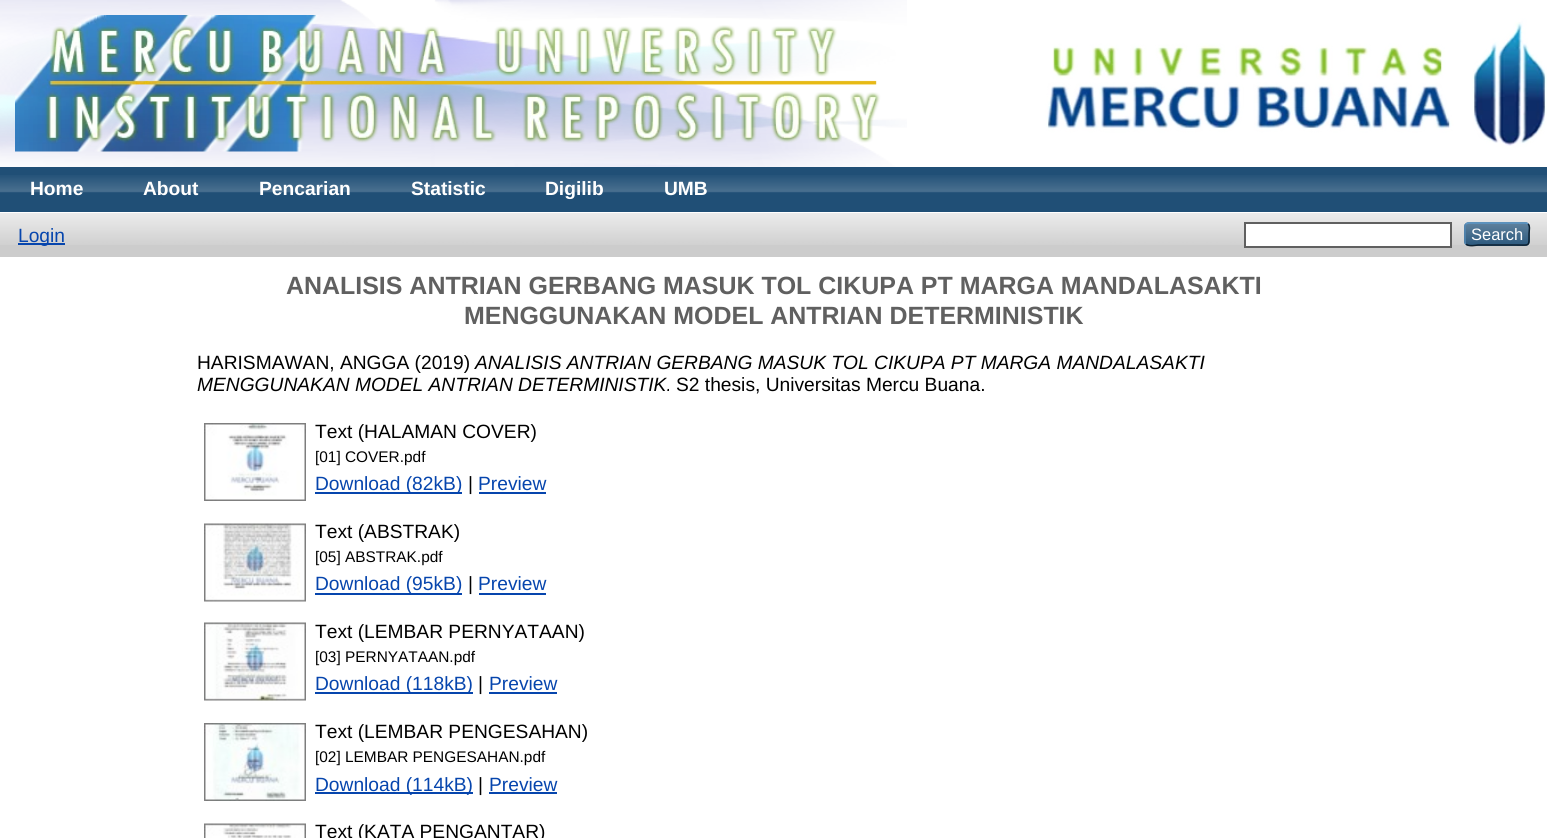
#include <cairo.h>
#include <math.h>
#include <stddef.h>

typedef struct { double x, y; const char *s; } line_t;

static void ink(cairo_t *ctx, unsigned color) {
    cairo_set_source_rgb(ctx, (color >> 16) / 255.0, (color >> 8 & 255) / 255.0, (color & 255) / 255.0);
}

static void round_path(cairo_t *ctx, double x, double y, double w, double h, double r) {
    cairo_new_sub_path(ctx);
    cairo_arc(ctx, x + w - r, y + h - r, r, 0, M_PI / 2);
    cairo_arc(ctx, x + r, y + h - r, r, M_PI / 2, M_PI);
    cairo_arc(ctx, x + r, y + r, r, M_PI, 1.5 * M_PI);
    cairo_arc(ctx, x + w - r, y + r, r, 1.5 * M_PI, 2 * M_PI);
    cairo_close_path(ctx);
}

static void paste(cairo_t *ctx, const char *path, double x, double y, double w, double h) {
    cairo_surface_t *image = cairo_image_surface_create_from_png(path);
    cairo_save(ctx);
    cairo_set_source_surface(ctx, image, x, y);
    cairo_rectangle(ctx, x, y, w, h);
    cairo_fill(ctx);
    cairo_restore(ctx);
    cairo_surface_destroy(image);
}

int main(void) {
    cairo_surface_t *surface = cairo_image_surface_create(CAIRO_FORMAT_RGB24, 1547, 838);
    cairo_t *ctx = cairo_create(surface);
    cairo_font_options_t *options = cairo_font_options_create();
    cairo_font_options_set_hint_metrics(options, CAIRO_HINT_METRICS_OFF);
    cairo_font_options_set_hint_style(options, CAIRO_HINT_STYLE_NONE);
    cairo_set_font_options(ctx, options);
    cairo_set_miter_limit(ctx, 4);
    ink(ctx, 0xFFFFFF);
    cairo_paint(ctx);
    paste(ctx, "media/1.png", 0, 0, 907, 167);
    paste(ctx, "media/2.png", 15, 15, 1532, 137);
    ink(ctx, 0x204F76);
    cairo_rectangle(ctx, 0, 167, 1547, 45);
    cairo_fill(ctx);
    paste(ctx, "media/3.png", 0, 175, 1547, 18);
    cairo_select_font_face(ctx, "Liberation Sans", CAIRO_FONT_SLANT_NORMAL, CAIRO_FONT_WEIGHT_BOLD);
    cairo_set_font_size(ctx, 19.2);
    ink(ctx, 0xFFFFFF);
    {
        static const line_t items[] = {
            {30, 195, "Home"},
            {143, 195, "About"},
            {259, 195, "Pencarian"},
            {411, 195, "Statistic"},
            {545, 195, "Digilib"},
            {664, 195, "UMB"},
        };
        for (size_t i = 0; i < sizeof items / sizeof *items; i++) {
            cairo_move_to(ctx, items[i].x, items[i].y);
            cairo_show_text(ctx, items[i].s);
        }
    }
    ink(ctx, 0xCCCCCC);
    cairo_rectangle(ctx, 0, 213, 1547, 44);
    cairo_fill(ctx);
    paste(ctx, "media/4.png", 0, 213, 1547, 32);
    ink(ctx, 0x0645AD);
    cairo_rectangle(ctx, 18, 243, 47, 2);
    cairo_fill(ctx);
    cairo_select_font_face(ctx, "Liberation Sans", CAIRO_FONT_SLANT_NORMAL, CAIRO_FONT_WEIGHT_NORMAL);
    cairo_move_to(ctx, 18, 242);
    cairo_show_text(ctx, "Login");
    ink(ctx, 0xFFFFFF);
    cairo_rectangle(ctx, 1245, 223, 206, 24);
    cairo_fill_preserve(ctx);
    ink(ctx, 0x606060);
    cairo_stroke(ctx);
    ink(ctx, 0x1F4F76);
    round_path(ctx, 1464, 222, 66, 24, 5);
    cairo_fill(ctx);
    paste(ctx, "media/5.png", 1464, 222, 66, 24);
    cairo_new_path(ctx);
    cairo_move_to(ctx, 1466, 224);
    cairo_line_to(ctx, 1468, 223);
    cairo_line_to(ctx, 1526, 223);
    cairo_line_to(ctx, 1528, 224);
    ink(ctx, 0x5B97C7);
    cairo_set_line_width(ctx, 1.5);
    cairo_stroke(ctx);
    cairo_new_path(ctx);
    cairo_move_to(ctx, 1528, 224);
    cairo_curve_to(ctx, 1530.5, 226, 1529, 231, 1529, 234);
    cairo_curve_to(ctx, 1529, 247, 1530, 245, 1516, 245);
    cairo_line_to(ctx, 1478, 245);
    cairo_curve_to(ctx, 1477.5, 245, 1468.5, 247, 1466, 244);
    ink(ctx, 0x0D2131);
    cairo_stroke(ctx);
    cairo_new_path(ctx);
    cairo_move_to(ctx, 1466, 244);
    cairo_curve_to(ctx, 1465, 243.5, 1465, 242.5, 1465, 241.5);
    cairo_line_to(ctx, 1465, 226.5);
    cairo_curve_to(ctx, 1465, 225.5, 1465, 224.5, 1466, 224);
    ink(ctx, 0x5287B3);
    cairo_stroke(ctx);
    cairo_set_font_size(ctx, 16.5);
    ink(ctx, 0xFFFFFF);
    cairo_move_to(ctx, 1471, 240);
    cairo_show_text(ctx, "Search");
    cairo_select_font_face(ctx, "Liberation Sans", CAIRO_FONT_SLANT_NORMAL, CAIRO_FONT_WEIGHT_BOLD);
    cairo_set_font_size(ctx, 24.95);
    ink(ctx, 0x606060);
    cairo_move_to(ctx, 286, 294);
    cairo_show_text(ctx, "ANALISIS ANTRIAN GERBANG MASUK TOL CIKUPA PT MARGA MANDALASAKTI");
    cairo_move_to(ctx, 464, 324);
    cairo_show_text(ctx, "MENGGUNAKAN MODEL ANTRIAN DETERMINISTIK");
    cairo_select_font_face(ctx, "Liberation Sans", CAIRO_FONT_SLANT_NORMAL, CAIRO_FONT_WEIGHT_NORMAL);
    cairo_set_font_size(ctx, 19.2);
    ink(ctx, 0x000000);
    cairo_move_to(ctx, 197, 369);
    cairo_show_text(ctx, "HARISMAWAN, ANGGA (2019)");
    cairo_select_font_face(ctx, "Liberation Sans", CAIRO_FONT_SLANT_ITALIC, CAIRO_FONT_WEIGHT_NORMAL);
    cairo_move_to(ctx, 475, 369);
    cairo_show_text(ctx, "ANALISIS ANTRIAN GERBANG MASUK TOL CIKUPA PT MARGA MANDALASAKTI");
    cairo_move_to(ctx, 197, 391);
    cairo_show_text(ctx, "MENGGUNAKAN MODEL ANTRIAN DETERMINISTIK.");
    cairo_select_font_face(ctx, "Liberation Sans", CAIRO_FONT_SLANT_NORMAL, CAIRO_FONT_WEIGHT_NORMAL);
    cairo_move_to(ctx, 676, 391);
    cairo_show_text(ctx, "S2 thesis, Universitas Mercu Buana.");
    paste(ctx, "media/6.png", 204, 423, 102, 78);
    cairo_move_to(ctx, 315, 438);
    cairo_show_text(ctx, "Text (HALAMAN COVER)");
    cairo_set_font_size(ctx, 15.4);
    cairo_move_to(ctx, 315, 462);
    cairo_show_text(ctx, "[01] COVER.pdf");
    ink(ctx, 0x0645AD);
    cairo_rectangle(ctx, 315, 492, 147, 2);
    cairo_fill(ctx);
    cairo_set_font_size(ctx, 19.2);
    cairo_move_to(ctx, 315, 490);
    cairo_show_text(ctx, "Download (82kB)");
    ink(ctx, 0x000000);
    cairo_move_to(ctx, 468, 490);
    cairo_show_text(ctx, "|");
    ink(ctx, 0x0645AD);
    cairo_move_to(ctx, 478, 490);
    cairo_show_text(ctx, "Preview");
    cairo_rectangle(ctx, 479, 492, 67, 2);
    cairo_fill(ctx);
    paste(ctx, "media/7.png", 204, 523, 102, 79);
    ink(ctx, 0x000000);
    cairo_move_to(ctx, 315, 538);
    cairo_show_text(ctx, "Text (ABSTRAK)");
    cairo_set_font_size(ctx, 15.4);
    cairo_move_to(ctx, 315, 562);
    cairo_show_text(ctx, "[05] ABSTRAK.pdf");
    ink(ctx, 0x0645AD);
    cairo_rectangle(ctx, 315, 593, 147, 2);
    cairo_fill(ctx);
    cairo_set_font_size(ctx, 19.2);
    cairo_move_to(ctx, 315, 590);
    cairo_show_text(ctx, "Download (95kB)");
    ink(ctx, 0x000000);
    cairo_move_to(ctx, 468, 590);
    cairo_show_text(ctx, "|");
    ink(ctx, 0x0645AD);
    cairo_move_to(ctx, 478, 590);
    cairo_show_text(ctx, "Preview");
    cairo_rectangle(ctx, 479, 593, 67, 2);
    cairo_fill(ctx);
    paste(ctx, "media/8.png", 204, 622, 102, 79);
    ink(ctx, 0x000000);
    cairo_move_to(ctx, 315, 638);
    cairo_show_text(ctx, "Text (LEMBAR PERNYATAAN)");
    cairo_set_font_size(ctx, 15.4);
    cairo_move_to(ctx, 315, 662);
    cairo_show_text(ctx, "[03] PERNYATAAN.pdf");
    ink(ctx, 0x0645AD);
    cairo_rectangle(ctx, 315, 692, 158, 2);
    cairo_fill(ctx);
    cairo_set_font_size(ctx, 19.2);
    cairo_move_to(ctx, 315, 690);
    cairo_show_text(ctx, "Download (118kB)");
    ink(ctx, 0x000000);
    cairo_move_to(ctx, 478, 690);
    cairo_show_text(ctx, "|");
    ink(ctx, 0x0645AD);
    cairo_move_to(ctx, 489, 690);
    cairo_show_text(ctx, "Preview");
    cairo_rectangle(ctx, 489, 692, 68, 2);
    cairo_fill(ctx);
    paste(ctx, "media/9.png", 204, 723, 102, 78);
    ink(ctx, 0x000000);
    cairo_move_to(ctx, 315, 738);
    cairo_show_text(ctx, "Text (LEMBAR PENGESAHAN)");
    cairo_set_font_size(ctx, 15.4);
    cairo_move_to(ctx, 315, 762);
    cairo_show_text(ctx, "[02] LEMBAR PENGESAHAN.pdf");
    ink(ctx, 0x0645AD);
    cairo_rectangle(ctx, 315, 792, 158, 2);
    cairo_fill(ctx);
    cairo_set_font_size(ctx, 19.2);
    cairo_move_to(ctx, 315, 791);
    cairo_show_text(ctx, "Download (114kB)");
    ink(ctx, 0x000000);
    cairo_move_to(ctx, 478, 791);
    cairo_show_text(ctx, "|");
    ink(ctx, 0x0645AD);
    cairo_move_to(ctx, 489, 791);
    cairo_show_text(ctx, "Preview");
    cairo_rectangle(ctx, 489, 792, 68, 2);
    cairo_fill(ctx);
    paste(ctx, "media/10.png", 204, 823, 102, 15);
    ink(ctx, 0x000000);
    cairo_move_to(ctx, 315, 838);
    cairo_show_text(ctx, "Text (KATA PENGANTAR)");
    cairo_surface_write_to_png(surface, "image.png");
    cairo_font_options_destroy(options);
    cairo_destroy(ctx);
    cairo_surface_destroy(surface);
    return 0;
}
